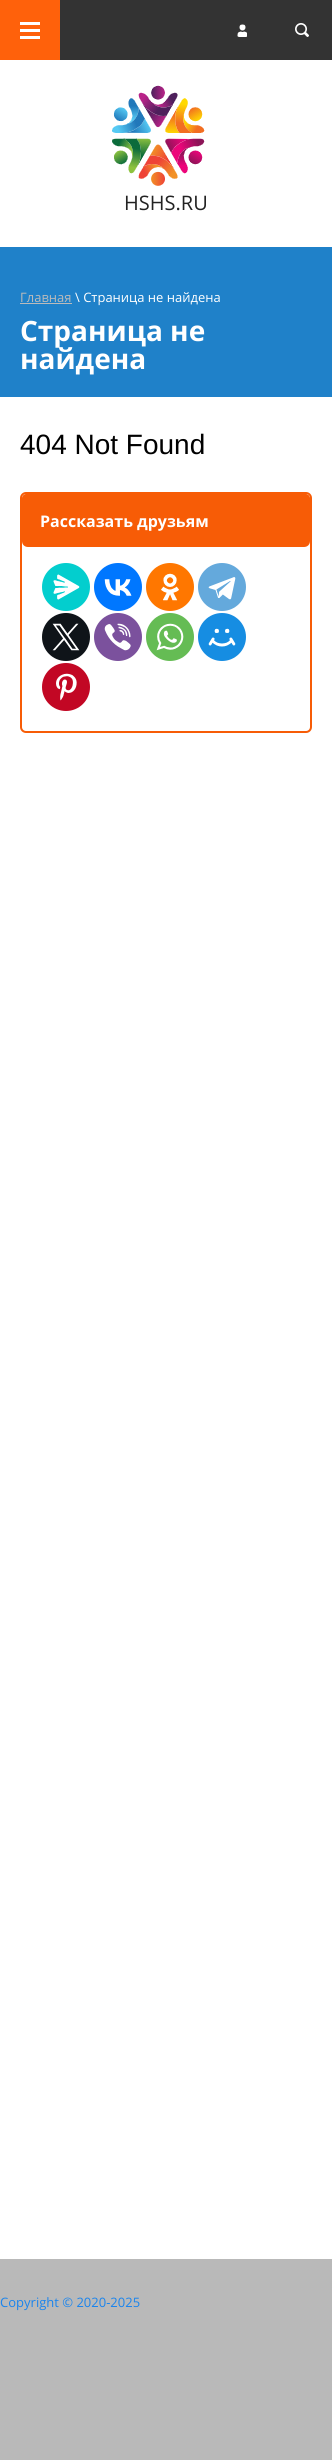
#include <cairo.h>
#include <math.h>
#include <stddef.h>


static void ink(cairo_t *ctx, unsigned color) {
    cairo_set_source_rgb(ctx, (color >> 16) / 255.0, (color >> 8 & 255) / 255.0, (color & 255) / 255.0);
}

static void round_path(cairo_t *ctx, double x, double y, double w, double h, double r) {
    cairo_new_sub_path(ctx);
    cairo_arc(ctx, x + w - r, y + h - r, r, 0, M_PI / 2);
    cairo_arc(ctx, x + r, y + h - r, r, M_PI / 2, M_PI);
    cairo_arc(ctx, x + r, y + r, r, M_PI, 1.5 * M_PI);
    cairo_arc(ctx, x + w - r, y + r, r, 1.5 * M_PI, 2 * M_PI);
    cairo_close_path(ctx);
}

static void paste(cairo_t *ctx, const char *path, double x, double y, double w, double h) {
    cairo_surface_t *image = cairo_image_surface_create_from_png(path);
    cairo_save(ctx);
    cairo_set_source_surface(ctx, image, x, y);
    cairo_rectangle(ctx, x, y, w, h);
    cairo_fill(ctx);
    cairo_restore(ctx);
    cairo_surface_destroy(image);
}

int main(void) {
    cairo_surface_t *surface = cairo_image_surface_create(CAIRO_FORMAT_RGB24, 332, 2460);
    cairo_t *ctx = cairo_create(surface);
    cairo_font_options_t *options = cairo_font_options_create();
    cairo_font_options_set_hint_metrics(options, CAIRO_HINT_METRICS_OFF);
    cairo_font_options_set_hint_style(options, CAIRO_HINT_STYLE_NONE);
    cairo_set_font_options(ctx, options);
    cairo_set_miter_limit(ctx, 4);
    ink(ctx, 0xFFFFFF);
    cairo_paint(ctx);
    ink(ctx, 0x333333);
    cairo_rectangle(ctx, 60, 0, 272, 60);
    cairo_fill(ctx);
    ink(ctx, 0xFF610B);
    cairo_rectangle(ctx, 0, 0, 60, 60);
    cairo_fill(ctx);
    paste(ctx, "media/1.png", 20, 22, 20, 17);
    paste(ctx, "media/2.png", 237, 24, 10, 13);
    paste(ctx, "media/3.png", 295, 23, 14, 14);
    paste(ctx, "media/4.png", 112, 85, 93, 101);
    cairo_select_font_face(ctx, "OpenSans", CAIRO_FONT_SLANT_NORMAL, CAIRO_FONT_WEIGHT_NORMAL);
    cairo_set_font_size(ctx, 20);
    ink(ctx, 0x222222);
    cairo_move_to(ctx, 124, 210);
    cairo_show_text(ctx, "HSHS.RU");
    ink(ctx, 0x1F81C9);
    cairo_rectangle(ctx, 0, 247, 332, 150);
    cairo_fill(ctx);
    cairo_set_font_size(ctx, 13);
    ink(ctx, 0xBBBBBB);
    cairo_move_to(ctx, 20, 302);
    cairo_show_text(ctx, "Главная");
    cairo_rectangle(ctx, 20, 303, 52, 1);
    cairo_fill(ctx);
    ink(ctx, 0xFFFFFF);
    cairo_move_to(ctx, 75, 302);
    cairo_show_text(ctx, "\\ Страница не найдена");
    cairo_select_font_face(ctx, "OpenSans", CAIRO_FONT_SLANT_NORMAL, CAIRO_FONT_WEIGHT_BOLD);
    cairo_set_font_size(ctx, 28);
    cairo_move_to(ctx, 20, 341);
    cairo_show_text(ctx, "Страница не");
    cairo_move_to(ctx, 20, 369);
    cairo_show_text(ctx, "найдена");
    cairo_select_font_face(ctx, "Liberation Sans", CAIRO_FONT_SLANT_NORMAL, CAIRO_FONT_WEIGHT_NORMAL);
    ink(ctx, 0x000000);
    cairo_move_to(ctx, 20, 454);
    cairo_show_text(ctx, "404 Not Found");
    round_path(ctx, 21, 493, 290, 239, 5);
    ink(ctx, 0xF75C06);
    cairo_stroke(ctx);
    cairo_new_path(ctx);
    cairo_move_to(ctx, 26, 494);
    cairo_line_to(ctx, 306, 494);
    cairo_curve_to(ctx, 308, 494, 310, 496, 310, 498);
    cairo_line_to(ctx, 310, 541);
    cairo_curve_to(ctx, 310, 544.5, 307.5, 547, 304, 547);
    cairo_line_to(ctx, 28, 547);
    cairo_curve_to(ctx, 24.5, 547, 22, 544.5, 22, 541);
    cairo_line_to(ctx, 22, 498);
    cairo_curve_to(ctx, 22, 496, 24, 494, 26, 494);
    cairo_close_path(ctx);
    cairo_fill(ctx);
    cairo_select_font_face(ctx, "OpenSans", CAIRO_FONT_SLANT_NORMAL, CAIRO_FONT_WEIGHT_BOLD);
    cairo_set_font_size(ctx, 16);
    ink(ctx, 0xFFFFFF);
    cairo_move_to(ctx, 40, 527);
    cairo_show_text(ctx, "Рассказать друзьям");
    ink(ctx, 0x03CECE);
    cairo_new_path(ctx);
    cairo_arc(ctx, 66, 587, 24, 0, 2 * M_PI);
    cairo_fill(ctx);
    paste(ctx, "media/5.png", 53, 574, 27, 26);
    ink(ctx, 0x0077FF);
    cairo_arc(ctx, 118, 587, 24, 0, 2 * M_PI);
    cairo_fill(ctx);
    paste(ctx, "media/6.png", 104, 579, 28, 17);
    ink(ctx, 0xFF7700);
    cairo_arc(ctx, 170, 587, 24, 0, 2 * M_PI);
    cairo_fill(ctx);
    paste(ctx, "media/7.png", 161, 573, 18, 28);
    ink(ctx, 0x64A9DC);
    cairo_arc(ctx, 222, 587, 24, 0, 2 * M_PI);
    cairo_fill(ctx);
    paste(ctx, "media/8.png", 208, 577, 28, 23);
    ink(ctx, 0x0F1419);
    cairo_arc(ctx, 66, 637, 24, 0, 2 * M_PI);
    cairo_fill(ctx);
    paste(ctx, "media/9.png", 52, 623, 28, 28);
    ink(ctx, 0x7B519D);
    cairo_arc(ctx, 118, 637, 24, 0, 2 * M_PI);
    cairo_fill(ctx);
    paste(ctx, "media/10.png", 104, 623, 27, 28);
    ink(ctx, 0x65BC54);
    cairo_arc(ctx, 170, 637, 24, 0, 2 * M_PI);
    cairo_fill(ctx);
    paste(ctx, "media/11.png", 156, 623, 28, 28);
    ink(ctx, 0x168DE2);
    cairo_arc(ctx, 222, 637, 24, 0, 2 * M_PI);
    cairo_fill(ctx);
    paste(ctx, "media/12.png", 208, 628, 28, 19);
    ink(ctx, 0xC20724);
    cairo_arc(ctx, 66, 687, 24, 0, 2 * M_PI);
    cairo_fill(ctx);
    paste(ctx, "media/13.png", 56, 673, 21, 28);
    ink(ctx, 0xB9B9B9);
    cairo_rectangle(ctx, 0, 2259, 332, 201);
    cairo_fill(ctx);
    cairo_select_font_face(ctx, "OpenSans", CAIRO_FONT_SLANT_NORMAL, CAIRO_FONT_WEIGHT_NORMAL);
    cairo_set_font_size(ctx, 13);
    ink(ctx, 0x1984EE);
    cairo_move_to(ctx, 0, 2307);
    cairo_show_text(ctx, "Copyright © 2020-2025");
    cairo_surface_write_to_png(surface, "image.png");
    cairo_font_options_destroy(options);
    cairo_destroy(ctx);
    cairo_surface_destroy(surface);
    return 0;
}
